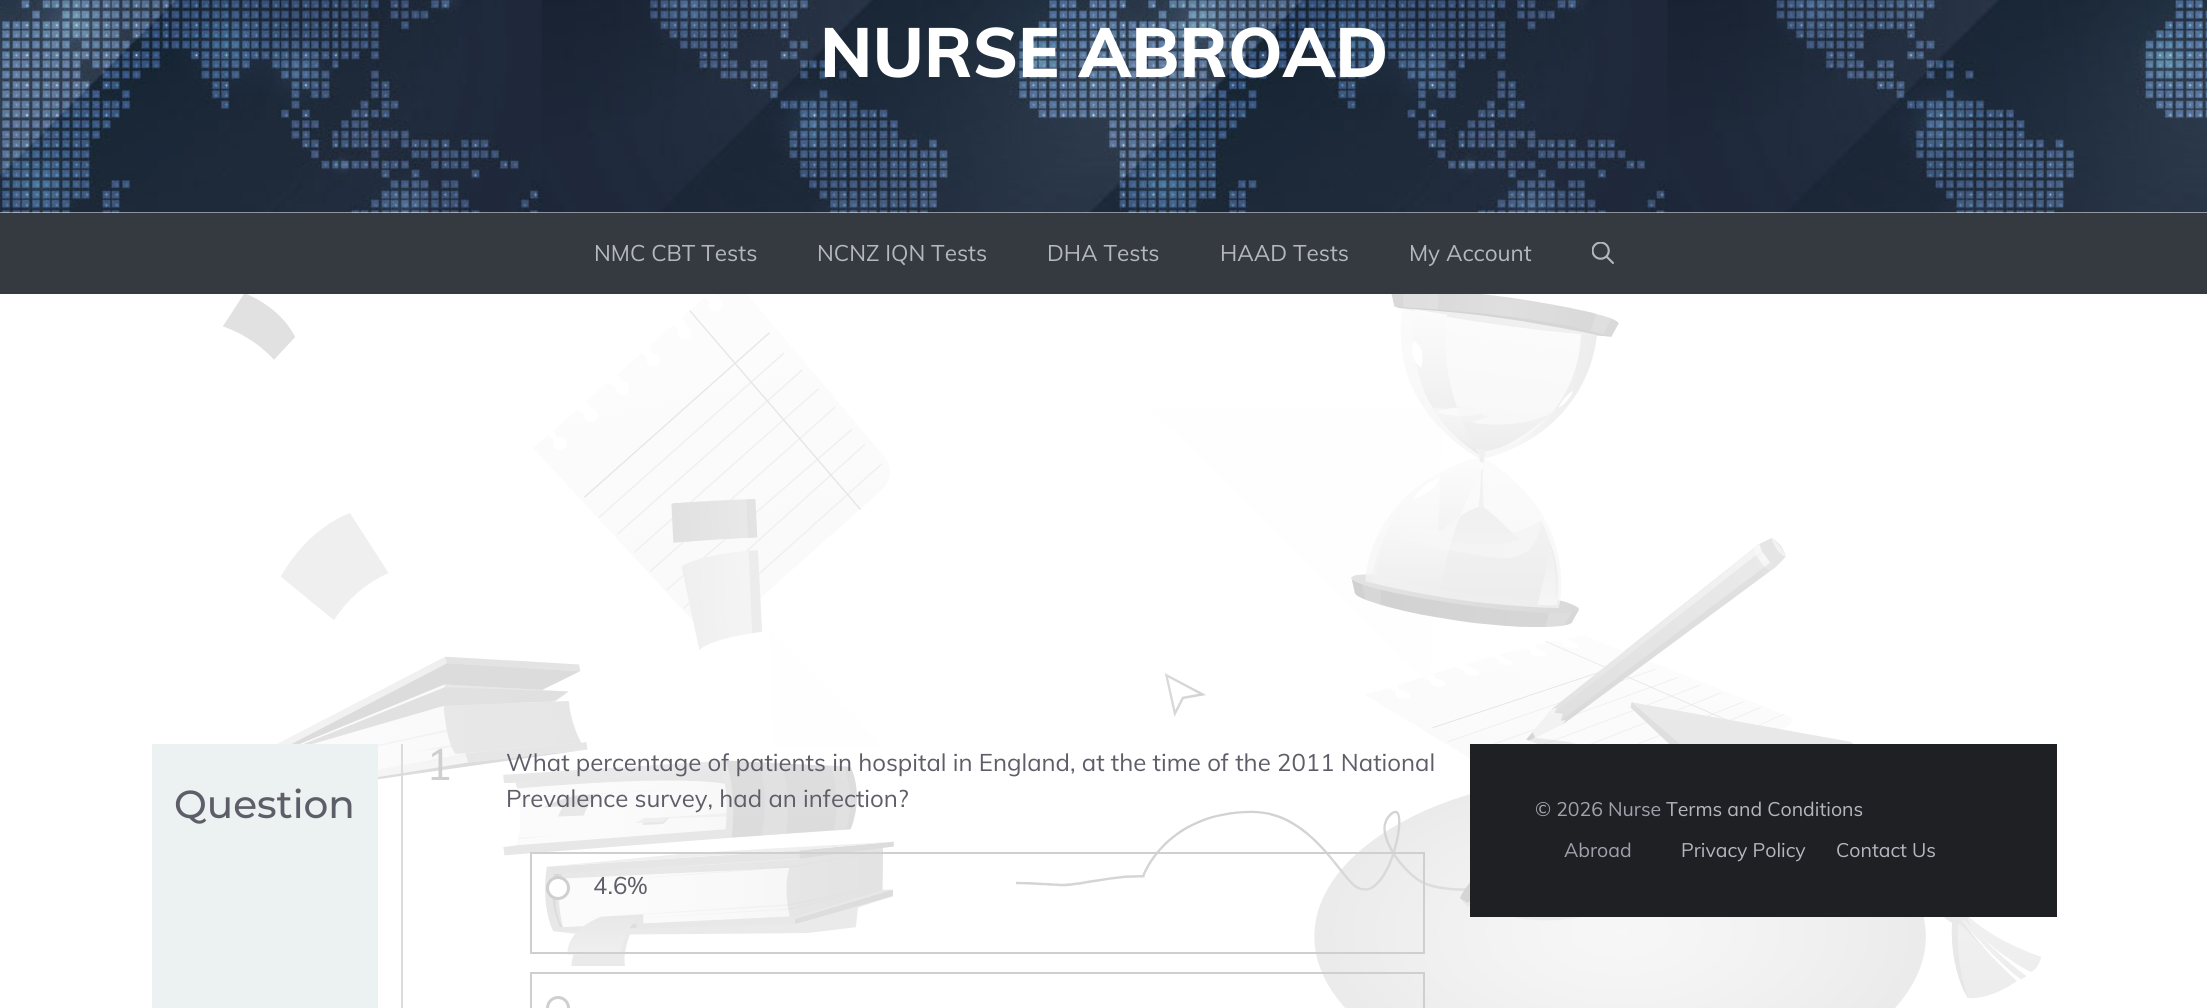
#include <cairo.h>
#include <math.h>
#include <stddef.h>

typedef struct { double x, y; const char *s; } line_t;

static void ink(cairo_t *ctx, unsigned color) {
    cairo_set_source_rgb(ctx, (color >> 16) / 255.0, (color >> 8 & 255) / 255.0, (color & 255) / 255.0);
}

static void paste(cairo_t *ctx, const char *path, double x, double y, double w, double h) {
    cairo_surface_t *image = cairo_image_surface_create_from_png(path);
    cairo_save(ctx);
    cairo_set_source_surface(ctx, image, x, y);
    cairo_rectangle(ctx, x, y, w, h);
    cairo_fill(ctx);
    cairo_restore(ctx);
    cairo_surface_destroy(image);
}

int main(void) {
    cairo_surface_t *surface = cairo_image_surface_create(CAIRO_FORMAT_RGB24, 2207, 1008);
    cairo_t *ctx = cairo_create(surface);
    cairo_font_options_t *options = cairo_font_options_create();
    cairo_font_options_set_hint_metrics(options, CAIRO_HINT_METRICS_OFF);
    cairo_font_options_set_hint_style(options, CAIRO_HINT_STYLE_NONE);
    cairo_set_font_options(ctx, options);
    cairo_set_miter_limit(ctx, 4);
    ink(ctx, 0xFFFFFF);
    cairo_paint(ctx);
    paste(ctx, "media/1.png", 223, 294, 1818, 714);
    paste(ctx, "media/2.png", 0, 0, 2207, 213);
    cairo_select_font_face(ctx, "Muli ExtraBold", CAIRO_FONT_SLANT_NORMAL, CAIRO_FONT_WEIGHT_NORMAL);
    cairo_set_font_size(ctx, 69);
    ink(ctx, 0xFFFFFF);
    cairo_move_to(ctx, 820, 77);
    cairo_show_text(ctx, "NURSE ABROAD");
    ink(ctx, 0x343A40);
    cairo_rectangle(ctx, 0, 213, 2207, 81);
    cairo_fill(ctx);
    cairo_select_font_face(ctx, "Muli", CAIRO_FONT_SLANT_NORMAL, CAIRO_FONT_WEIGHT_NORMAL);
    cairo_set_font_size(ctx, 22.5);
    ink(ctx, 0xB5B7BF);
    {
        static const line_t items[] = {
            {594, 261, "NMC CBT Tests"},
            {817, 261, "NCNZ IQN Tests"},
            {1047, 261, "DHA Tests"},
            {1220, 261, "HAAD Tests"},
            {1409, 261, "My Account"},
        };
        for (size_t i = 0; i < sizeof items / sizeof *items; i++) {
            cairo_move_to(ctx, items[i].x, items[i].y);
            cairo_show_text(ctx, items[i].s);
        }
    }
    paste(ctx, "media/3.png", 1592, 242, 22, 22);
    ink(ctx, 0xECF1F2);
    cairo_rectangle(ctx, 152, 744, 226, 264);
    cairo_fill(ctx);
    cairo_select_font_face(ctx, "Montserrat Medium", CAIRO_FONT_SLANT_NORMAL, CAIRO_FONT_WEIGHT_NORMAL);
    cairo_set_font_size(ctx, 39);
    ink(ctx, 0x5E5E69);
    cairo_move_to(ctx, 174, 818);
    cairo_show_text(ctx, "Question");
    ink(ctx, 0xDCDCDC);
    cairo_rectangle(ctx, 401, 744, 2, 264);
    cairo_fill(ctx);
    cairo_select_font_face(ctx, "Muli", CAIRO_FONT_SLANT_NORMAL, CAIRO_FONT_WEIGHT_NORMAL);
    cairo_set_font_size(ctx, 44);
    ink(ctx, 0xCFCFCF);
    cairo_move_to(ctx, 426, 780);
    cairo_show_text(ctx, "1");
    cairo_set_font_size(ctx, 24);
    ink(ctx, 0x5E5E69);
    cairo_move_to(ctx, 506, 771);
    cairo_show_text(ctx, "What percentage of patients in hospital in England, at the time of the 2011 National");
    cairo_move_to(ctx, 506, 807);
    cairo_show_text(ctx, "Prevalence survey, had an infection?");
    cairo_rectangle(ctx, 531, 853, 893, 100);
    ink(ctx, 0xCFCFCF);
    cairo_stroke(ctx);
    ink(ctx, 0xFFFFFF);
    cairo_arc(ctx, 558, 888, 10.5, 0, 2 * M_PI);
    cairo_fill_preserve(ctx);
    ink(ctx, 0xCFCFCF);
    cairo_set_line_width(ctx, 3);
    cairo_stroke(ctx);
    ink(ctx, 0x5E5E69);
    cairo_move_to(ctx, 593, 894);
    cairo_show_text(ctx, "4.6%");
    cairo_rectangle(ctx, 531, 973, 893, 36);
    ink(ctx, 0xCFCFCF);
    cairo_set_line_width(ctx, 2);
    cairo_stroke(ctx);
    cairo_arc(ctx, 558, 1008, 10.5, 0, 2 * M_PI);
    cairo_set_line_width(ctx, 3);
    cairo_stroke(ctx);
    ink(ctx, 0x1F2024);
    cairo_rectangle(ctx, 1470, 744, 587, 173);
    cairo_fill(ctx);
    cairo_set_font_size(ctx, 19.5);
    ink(ctx, 0xA0A1AD);
    cairo_move_to(ctx, 1535, 816);
    cairo_show_text(ctx, "© 2026 Nurse");
    cairo_move_to(ctx, 1564, 857);
    cairo_show_text(ctx, "Abroad");
    ink(ctx, 0xB5B7BF);
    {
        static const line_t items[] = {
            {1666, 816, "Terms and Conditions"},
            {1681, 857, "Privacy Policy"},
            {1836, 857, "Contact Us"},
        };
        for (size_t i = 0; i < sizeof items / sizeof *items; i++) {
            cairo_move_to(ctx, items[i].x, items[i].y);
            cairo_show_text(ctx, items[i].s);
        }
    }
    cairo_surface_write_to_png(surface, "image.png");
    cairo_font_options_destroy(options);
    cairo_destroy(ctx);
    cairo_surface_destroy(surface);
    return 0;
}
